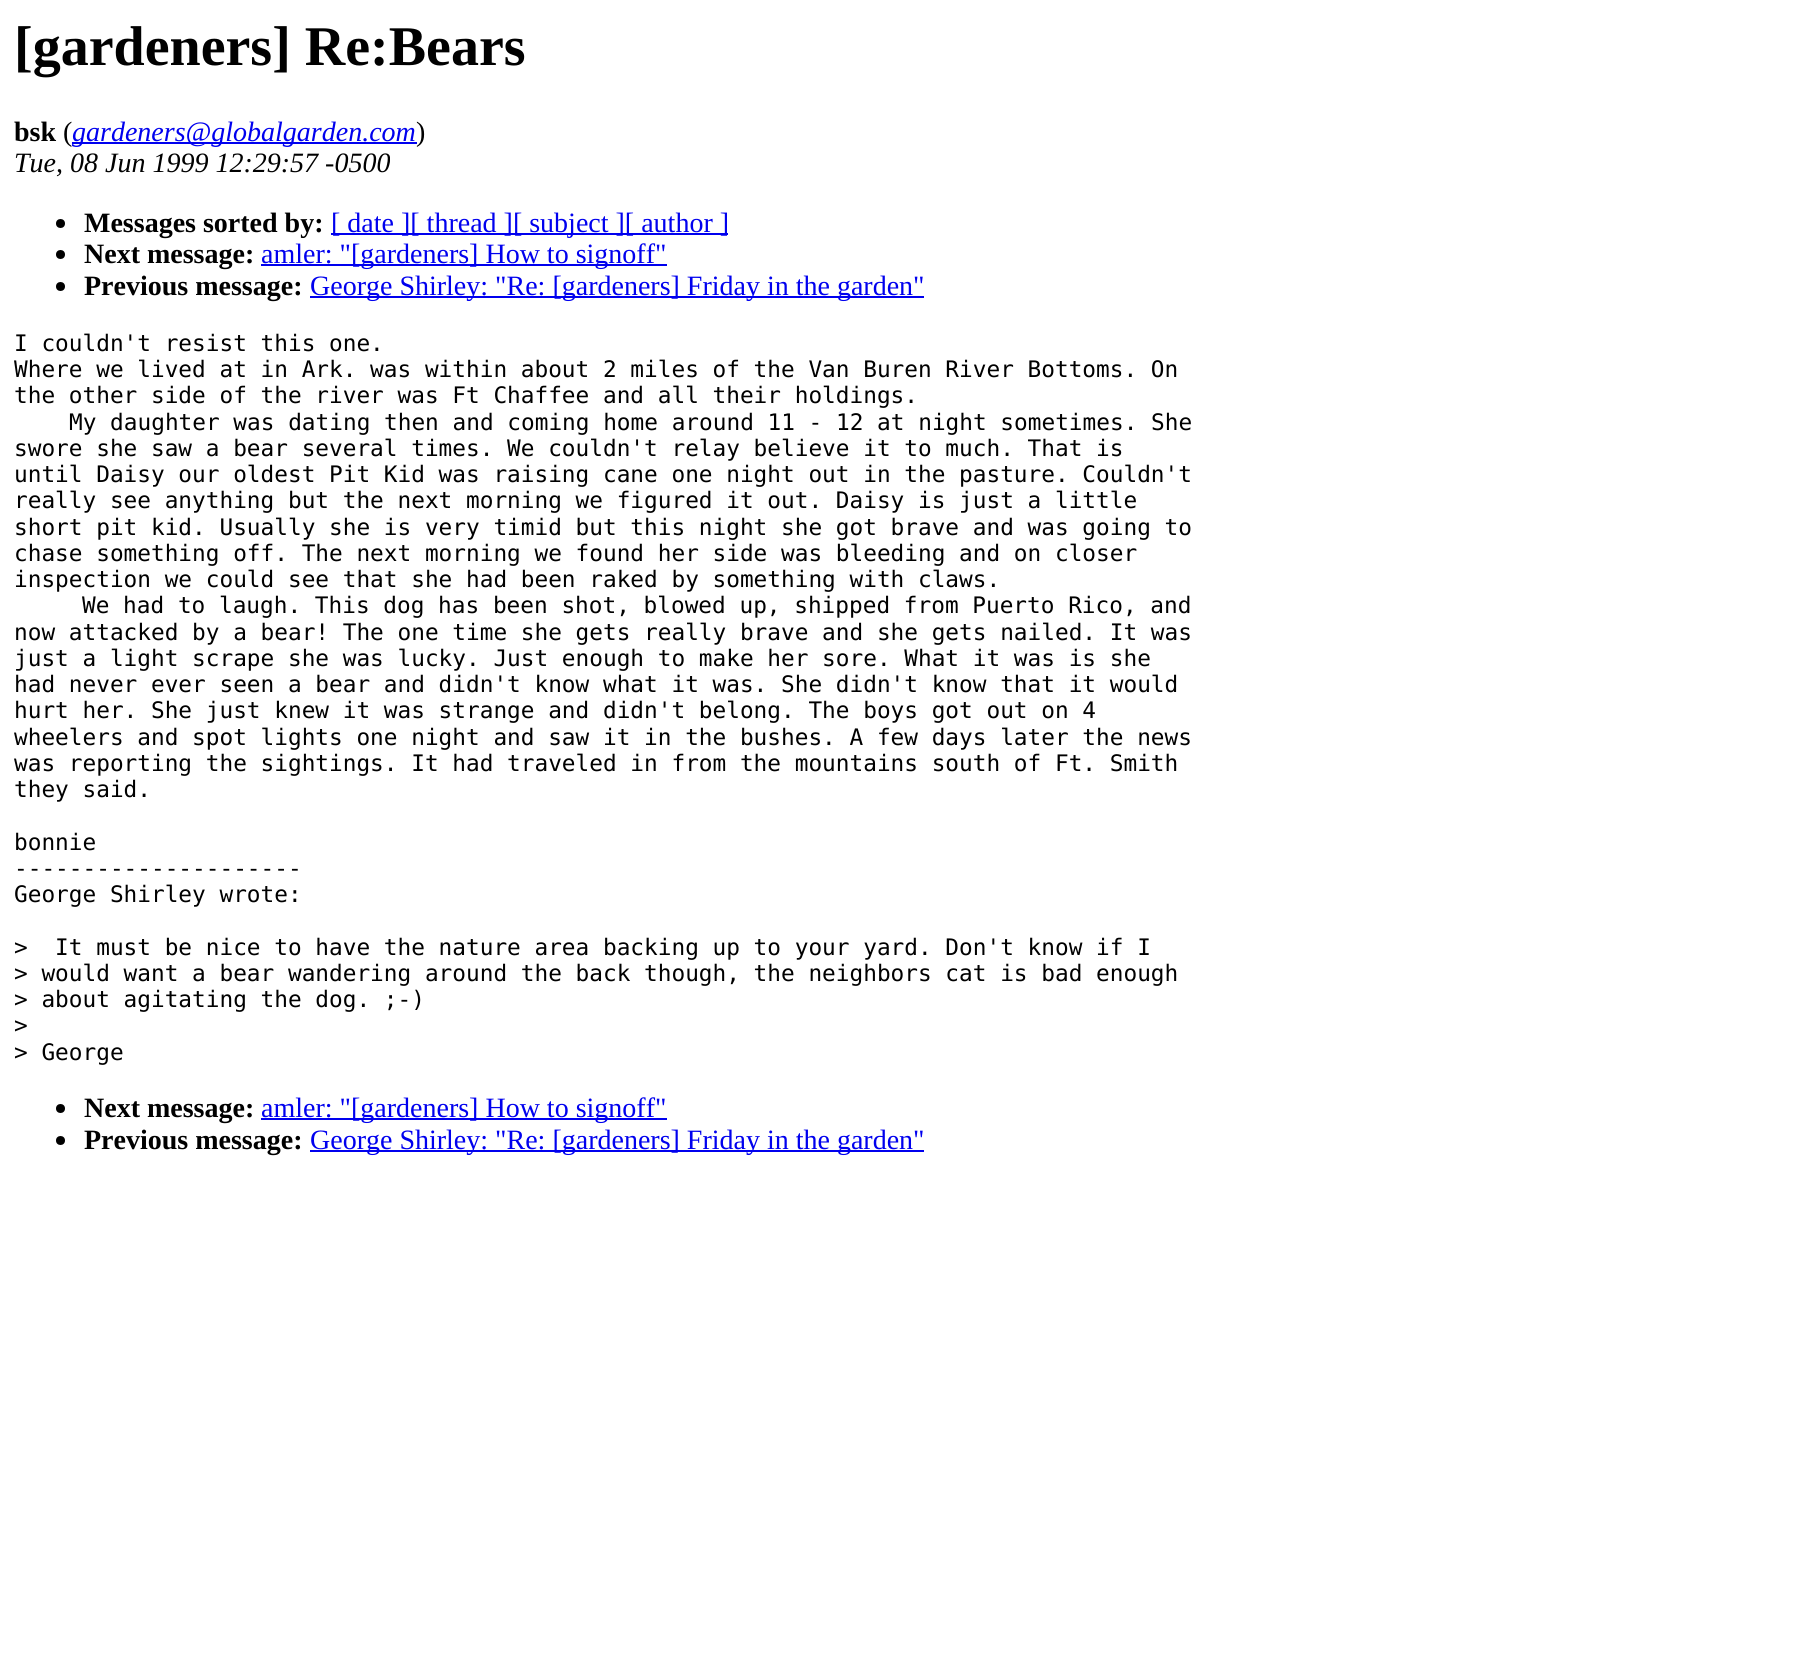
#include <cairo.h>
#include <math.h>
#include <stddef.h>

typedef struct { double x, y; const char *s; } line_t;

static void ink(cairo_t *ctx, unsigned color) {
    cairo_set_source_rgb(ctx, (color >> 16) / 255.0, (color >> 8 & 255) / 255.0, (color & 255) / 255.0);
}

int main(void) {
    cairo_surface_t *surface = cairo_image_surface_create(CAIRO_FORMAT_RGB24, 1810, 1670);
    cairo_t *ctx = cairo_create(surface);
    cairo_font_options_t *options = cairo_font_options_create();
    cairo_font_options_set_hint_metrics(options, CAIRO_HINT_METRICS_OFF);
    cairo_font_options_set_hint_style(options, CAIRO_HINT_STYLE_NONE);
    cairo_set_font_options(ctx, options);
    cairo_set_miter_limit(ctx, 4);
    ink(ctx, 0xFFFFFF);
    cairo_paint(ctx);
    cairo_select_font_face(ctx, "Liberation Serif", CAIRO_FONT_SLANT_NORMAL, CAIRO_FONT_WEIGHT_BOLD);
    cairo_set_font_size(ctx, 56);
    ink(ctx, 0x000000);
    cairo_move_to(ctx, 14, 65);
    cairo_show_text(ctx, "[gardeners] Re:Bears");
    cairo_set_font_size(ctx, 28);
    cairo_move_to(ctx, 14, 141);
    cairo_show_text(ctx, "bsk");
    cairo_select_font_face(ctx, "Liberation Serif", CAIRO_FONT_SLANT_NORMAL, CAIRO_FONT_WEIGHT_NORMAL);
    cairo_move_to(ctx, 63, 141);
    cairo_show_text(ctx, "(");
    ink(ctx, 0x0000EE);
    cairo_rectangle(ctx, 72, 142, 345, 2);
    cairo_fill(ctx);
    cairo_select_font_face(ctx, "Liberation Serif", CAIRO_FONT_SLANT_ITALIC, CAIRO_FONT_WEIGHT_NORMAL);
    cairo_move_to(ctx, 72, 141);
    cairo_show_text(ctx, "gardeners@globalgarden.com");
    cairo_select_font_face(ctx, "Liberation Serif", CAIRO_FONT_SLANT_NORMAL, CAIRO_FONT_WEIGHT_NORMAL);
    ink(ctx, 0x000000);
    cairo_move_to(ctx, 416, 141);
    cairo_show_text(ctx, ")");
    cairo_select_font_face(ctx, "Liberation Serif", CAIRO_FONT_SLANT_ITALIC, CAIRO_FONT_WEIGHT_NORMAL);
    cairo_move_to(ctx, 14, 172);
    cairo_show_text(ctx, "Tue, 08 Jun 1999 12:29:57 -0500");
    cairo_new_path(ctx);
    cairo_arc(ctx, 60.5, 223.5, 4.5, 0, 2 * M_PI);
    cairo_fill(ctx);
    cairo_select_font_face(ctx, "Liberation Serif", CAIRO_FONT_SLANT_NORMAL, CAIRO_FONT_WEIGHT_BOLD);
    cairo_move_to(ctx, 84, 232);
    cairo_show_text(ctx, "Messages sorted by:");
    ink(ctx, 0x0000EE);
    cairo_rectangle(ctx, 331, 233, 397, 2);
    cairo_fill(ctx);
    cairo_select_font_face(ctx, "Liberation Serif", CAIRO_FONT_SLANT_NORMAL, CAIRO_FONT_WEIGHT_NORMAL);
    cairo_move_to(ctx, 331, 232);
    cairo_show_text(ctx, "[ date ][ thread ][ subject ][ author ]");
    ink(ctx, 0x000000);
    cairo_new_path(ctx);
    cairo_arc(ctx, 60.5, 254.5, 4.5, 0, 2 * M_PI);
    cairo_fill(ctx);
    cairo_select_font_face(ctx, "Liberation Serif", CAIRO_FONT_SLANT_NORMAL, CAIRO_FONT_WEIGHT_BOLD);
    cairo_move_to(ctx, 84, 263);
    cairo_show_text(ctx, "Next message:");
    ink(ctx, 0x0000EE);
    cairo_rectangle(ctx, 261, 264, 406, 2);
    cairo_fill(ctx);
    cairo_select_font_face(ctx, "Liberation Serif", CAIRO_FONT_SLANT_NORMAL, CAIRO_FONT_WEIGHT_NORMAL);
    cairo_move_to(ctx, 261, 263);
    cairo_show_text(ctx, "amler: \"[gardeners] How to signoff\"");
    ink(ctx, 0x000000);
    cairo_new_path(ctx);
    cairo_arc(ctx, 60.5, 286.5, 4.5, 0, 2 * M_PI);
    cairo_fill(ctx);
    cairo_select_font_face(ctx, "Liberation Serif", CAIRO_FONT_SLANT_NORMAL, CAIRO_FONT_WEIGHT_BOLD);
    cairo_move_to(ctx, 84, 295);
    cairo_show_text(ctx, "Previous message:");
    ink(ctx, 0x0000EE);
    cairo_rectangle(ctx, 310, 296, 614, 2);
    cairo_fill(ctx);
    cairo_select_font_face(ctx, "Liberation Serif", CAIRO_FONT_SLANT_NORMAL, CAIRO_FONT_WEIGHT_NORMAL);
    cairo_move_to(ctx, 310, 295);
    cairo_show_text(ctx, "George Shirley: \"Re: [gardeners] Friday in the garden\"");
    cairo_select_font_face(ctx, "DejaVu Sans Mono", CAIRO_FONT_SLANT_NORMAL, CAIRO_FONT_WEIGHT_NORMAL);
    cairo_set_font_size(ctx, 22.75);
    ink(ctx, 0x000000);
    {
        static const line_t items[] = {
            {14, 351, "I couldn't resist this one."},
            {14, 377, "Where we lived at in Ark. was within about 2 miles of the Van Buren River Bottoms. On"},
            {14, 403, "the other side of the river was Ft Chaffee and all their holdings."},
            {69, 430, "My daughter was dating then and coming home around 11 - 12 at night sometimes. She"},
            {14, 456, "swore she saw a bear several times. We couldn't relay believe it to much. That is"},
            {14, 482, "until Daisy our oldest Pit Kid was raising cane one night out in the pasture. Couldn't"},
            {14, 508, "really see anything but the next morning we figured it out. Daisy is just a little"},
            {14, 535, "short pit kid. Usually she is very timid but this night she got brave and was going to"},
            {14, 561, "chase something off. The next morning we found her side was bleeding and on closer"},
            {14, 587, "inspection we could see that she had been raked by something with claws."},
            {82, 613, "We had to laugh. This dog has been shot, blowed up, shipped from Puerto Rico, and"},
            {14, 640, "now attacked by a bear! The one time she gets really brave and she gets nailed. It was"},
            {14, 666, "just a light scrape she was lucky. Just enough to make her sore. What it was is she"},
            {14, 692, "had never ever seen a bear and didn't know what it was. She didn't know that it would"},
            {14, 718, "hurt her. She just knew it was strange and didn't belong. The boys got out on 4"},
            {14, 745, "wheelers and spot lights one night and saw it in the bushes. A few days later the news"},
            {14, 771, "was reporting the sightings. It had traveled in from the mountains south of Ft. Smith"},
            {14, 797, "they said."},
            {14, 850, "bonnie"},
            {14, 876, "---------------------"},
            {14, 902, "George Shirley wrote:"},
            {14, 955, ">  It must be nice to have the nature area backing up to your yard. Don't know if I"},
            {14, 981, "> would want a bear wandering around the back though, the neighbors cat is bad enough"},
            {14, 1007, "> about agitating the dog. ;-)"},
            {14, 1033, ">"},
            {14, 1060, "> George"},
        };
        for (size_t i = 0; i < sizeof items / sizeof *items; i++) {
            cairo_move_to(ctx, items[i].x, items[i].y);
            cairo_show_text(ctx, items[i].s);
        }
    }
    cairo_new_path(ctx);
    cairo_arc(ctx, 60.5, 1108.5, 4.5, 0, 2 * M_PI);
    cairo_fill(ctx);
    cairo_select_font_face(ctx, "Liberation Serif", CAIRO_FONT_SLANT_NORMAL, CAIRO_FONT_WEIGHT_BOLD);
    cairo_set_font_size(ctx, 28);
    cairo_move_to(ctx, 84, 1117);
    cairo_show_text(ctx, "Next message:");
    ink(ctx, 0x0000EE);
    cairo_rectangle(ctx, 261, 1118, 406, 2);
    cairo_fill(ctx);
    cairo_select_font_face(ctx, "Liberation Serif", CAIRO_FONT_SLANT_NORMAL, CAIRO_FONT_WEIGHT_NORMAL);
    cairo_move_to(ctx, 261, 1117);
    cairo_show_text(ctx, "amler: \"[gardeners] How to signoff\"");
    ink(ctx, 0x000000);
    cairo_new_path(ctx);
    cairo_arc(ctx, 60.5, 1140.5, 4.5, 0, 2 * M_PI);
    cairo_fill(ctx);
    cairo_select_font_face(ctx, "Liberation Serif", CAIRO_FONT_SLANT_NORMAL, CAIRO_FONT_WEIGHT_BOLD);
    cairo_move_to(ctx, 84, 1149);
    cairo_show_text(ctx, "Previous message:");
    ink(ctx, 0x0000EE);
    cairo_rectangle(ctx, 310, 1150, 614, 2);
    cairo_fill(ctx);
    cairo_select_font_face(ctx, "Liberation Serif", CAIRO_FONT_SLANT_NORMAL, CAIRO_FONT_WEIGHT_NORMAL);
    cairo_move_to(ctx, 310, 1149);
    cairo_show_text(ctx, "George Shirley: \"Re: [gardeners] Friday in the garden\"");
    cairo_surface_write_to_png(surface, "image.png");
    cairo_font_options_destroy(options);
    cairo_destroy(ctx);
    cairo_surface_destroy(surface);
    return 0;
}
